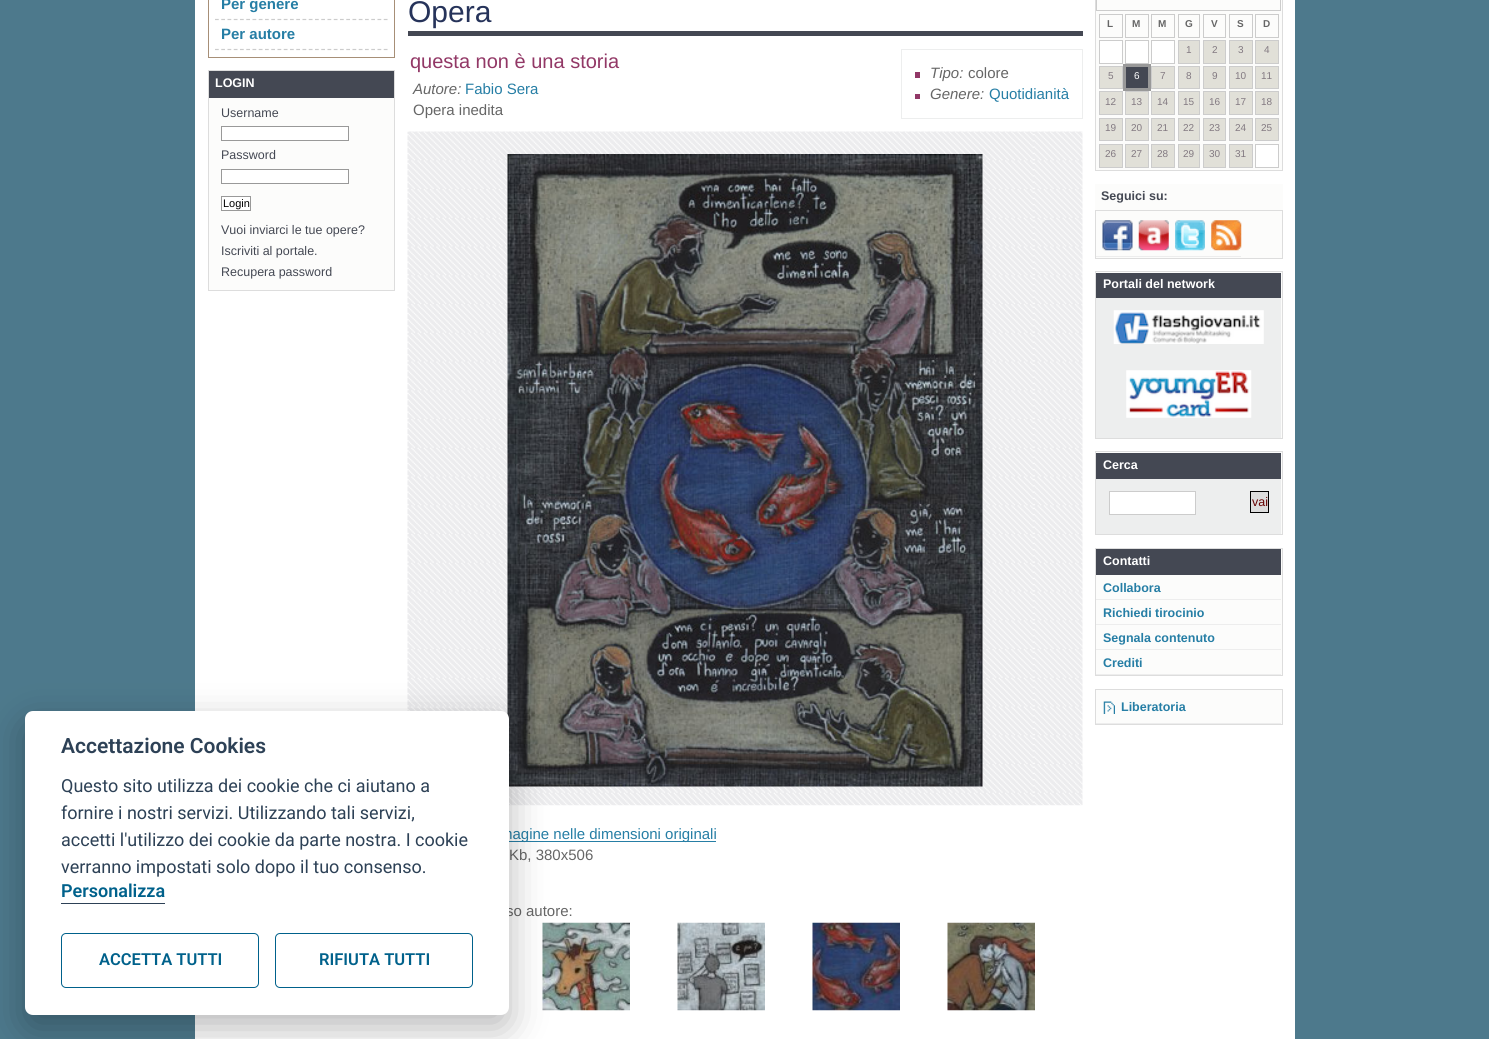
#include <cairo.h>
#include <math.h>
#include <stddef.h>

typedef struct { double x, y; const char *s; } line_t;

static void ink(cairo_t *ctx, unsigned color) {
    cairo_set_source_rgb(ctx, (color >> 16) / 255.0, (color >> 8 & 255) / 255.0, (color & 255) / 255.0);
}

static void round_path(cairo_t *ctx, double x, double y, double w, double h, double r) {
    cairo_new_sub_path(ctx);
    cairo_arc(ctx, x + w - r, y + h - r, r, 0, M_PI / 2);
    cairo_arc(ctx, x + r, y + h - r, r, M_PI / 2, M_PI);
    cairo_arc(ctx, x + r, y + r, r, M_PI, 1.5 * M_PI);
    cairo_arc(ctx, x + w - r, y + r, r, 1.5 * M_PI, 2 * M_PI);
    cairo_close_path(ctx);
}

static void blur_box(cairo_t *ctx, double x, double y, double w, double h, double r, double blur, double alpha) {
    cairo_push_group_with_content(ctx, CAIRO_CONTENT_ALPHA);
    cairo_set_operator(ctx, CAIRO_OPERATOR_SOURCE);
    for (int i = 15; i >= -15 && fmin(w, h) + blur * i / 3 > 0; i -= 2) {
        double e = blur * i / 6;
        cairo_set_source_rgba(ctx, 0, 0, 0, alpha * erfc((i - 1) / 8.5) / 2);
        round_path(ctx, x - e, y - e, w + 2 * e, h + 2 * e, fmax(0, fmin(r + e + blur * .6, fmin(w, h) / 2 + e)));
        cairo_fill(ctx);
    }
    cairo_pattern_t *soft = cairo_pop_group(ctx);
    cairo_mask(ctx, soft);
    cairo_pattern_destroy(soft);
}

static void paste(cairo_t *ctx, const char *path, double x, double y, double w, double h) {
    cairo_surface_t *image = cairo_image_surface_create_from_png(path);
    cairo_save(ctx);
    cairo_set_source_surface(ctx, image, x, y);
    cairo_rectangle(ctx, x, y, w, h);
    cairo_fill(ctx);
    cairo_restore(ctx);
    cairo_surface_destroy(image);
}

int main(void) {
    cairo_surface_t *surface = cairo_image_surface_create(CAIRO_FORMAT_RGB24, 1489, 1039);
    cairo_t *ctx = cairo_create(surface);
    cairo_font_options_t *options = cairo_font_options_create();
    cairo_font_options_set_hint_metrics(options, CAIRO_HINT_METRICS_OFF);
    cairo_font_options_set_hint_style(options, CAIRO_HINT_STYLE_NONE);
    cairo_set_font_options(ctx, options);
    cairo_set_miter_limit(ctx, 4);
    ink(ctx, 0x4D798C);
    cairo_paint(ctx);
    ink(ctx, 0xFFFFFF);
    cairo_rectangle(ctx, 195, 0, 1100, 1039);
    cairo_fill(ctx);
    cairo_rectangle(ctx, 208.5, -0.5, 186, 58);
    ink(ctx, 0xA78F77);
    cairo_set_line_width(ctx, 1);
    cairo_stroke(ctx);
    cairo_new_path(ctx);
    cairo_move_to(ctx, 215, 19.5);
    cairo_line_to(ctx, 387.5, 19.5);
    ink(ctx, 0xCCCCCC);
    cairo_set_line_width(ctx, 1.2);
    cairo_set_dash(ctx, (double[]){3.75, 2.5}, 2, 0);
    cairo_stroke(ctx);
    cairo_select_font_face(ctx, "Liberation Sans", CAIRO_FONT_SLANT_NORMAL, CAIRO_FONT_WEIGHT_BOLD);
    cairo_set_font_size(ctx, 15);
    ink(ctx, 0x267EA5);
    cairo_move_to(ctx, 221, 9);
    cairo_show_text(ctx, "Per genere");
    cairo_new_path(ctx);
    cairo_move_to(ctx, 215, 49.5);
    cairo_line_to(ctx, 387.5, 49.5);
    ink(ctx, 0xCCCCCC);
    cairo_stroke(ctx);
    ink(ctx, 0x267EA5);
    cairo_move_to(ctx, 221, 39);
    cairo_show_text(ctx, "Per autore");
    ink(ctx, 0xFCFCFB);
    cairo_rectangle(ctx, 209, 98, 185, 192);
    cairo_fill(ctx);
    cairo_rectangle(ctx, 208.5, 70.5, 186, 220);
    ink(ctx, 0xDDDDDD);
    cairo_set_line_width(ctx, 1);
    cairo_set_dash(ctx, NULL, 0, 0);
    cairo_stroke(ctx);
    ink(ctx, 0x444853);
    cairo_rectangle(ctx, 209, 71, 185, 27);
    cairo_fill(ctx);
    cairo_set_font_size(ctx, 12.5);
    ink(ctx, 0xFFFFFF);
    cairo_move_to(ctx, 215, 87);
    cairo_show_text(ctx, "LOGIN");
    cairo_select_font_face(ctx, "Liberation Sans", CAIRO_FONT_SLANT_NORMAL, CAIRO_FONT_WEIGHT_NORMAL);
    ink(ctx, 0x444853);
    cairo_move_to(ctx, 221, 117);
    cairo_show_text(ctx, "Username");
    ink(ctx, 0xFFFFFF);
    cairo_rectangle(ctx, 221.5, 126.5, 127, 14);
    cairo_fill_preserve(ctx);
    ink(ctx, 0x999999);
    cairo_stroke(ctx);
    ink(ctx, 0x444853);
    cairo_move_to(ctx, 221, 159);
    cairo_show_text(ctx, "Password");
    ink(ctx, 0xFFFFFF);
    cairo_rectangle(ctx, 221.5, 169.5, 127, 14);
    cairo_fill_preserve(ctx);
    ink(ctx, 0x999999);
    cairo_stroke(ctx);
    ink(ctx, 0xFFFFFF);
    cairo_rectangle(ctx, 221.5, 196.5, 29, 14);
    cairo_fill_preserve(ctx);
    ink(ctx, 0x999999);
    cairo_stroke(ctx);
    cairo_set_font_size(ctx, 11);
    ink(ctx, 0x000000);
    cairo_move_to(ctx, 223, 207);
    cairo_show_text(ctx, "Login");
    cairo_set_font_size(ctx, 12.5);
    ink(ctx, 0x444853);
    {
        static const line_t items[] = {
            {221, 234, "Vuoi inviarci le tue opere?"},
            {221, 255, "Iscriviti al portale."},
            {221, 276, "Recupera password"},
        };
        for (size_t i = 0; i < sizeof items / sizeof *items; i++) {
            cairo_move_to(ctx, items[i].x, items[i].y);
            cairo_show_text(ctx, items[i].s);
        }
    }
    cairo_rectangle(ctx, 408, 31, 675, 5);
    cairo_fill(ctx);
    cairo_set_font_size(ctx, 30);
    ink(ctx, 0x26335A);
    cairo_move_to(ctx, 408, 22);
    cairo_show_text(ctx, "Opera");
    cairo_set_font_size(ctx, 20);
    ink(ctx, 0x923866);
    cairo_move_to(ctx, 410, 68);
    cairo_show_text(ctx, "questa non è una storia");
    cairo_select_font_face(ctx, "Liberation Sans", CAIRO_FONT_SLANT_ITALIC, CAIRO_FONT_WEIGHT_NORMAL);
    cairo_set_font_size(ctx, 15);
    ink(ctx, 0x666666);
    cairo_move_to(ctx, 413, 94);
    cairo_show_text(ctx, "Autore:");
    cairo_select_font_face(ctx, "Liberation Sans", CAIRO_FONT_SLANT_NORMAL, CAIRO_FONT_WEIGHT_NORMAL);
    ink(ctx, 0x267EA5);
    cairo_move_to(ctx, 465, 94);
    cairo_show_text(ctx, "Fabio Sera");
    ink(ctx, 0x666666);
    cairo_move_to(ctx, 413, 115);
    cairo_show_text(ctx, "Opera inedita");
    cairo_rectangle(ctx, 901.5, 49.5, 181, 69);
    ink(ctx, 0xEDEEEE);
    cairo_stroke(ctx);
    cairo_select_font_face(ctx, "Liberation Sans", CAIRO_FONT_SLANT_ITALIC, CAIRO_FONT_WEIGHT_NORMAL);
    ink(ctx, 0x666666);
    cairo_move_to(ctx, 930, 78);
    cairo_show_text(ctx, "Tipo:");
    ink(ctx, 0x923867);
    cairo_rectangle(ctx, 915, 72, 5, 6);
    cairo_fill(ctx);
    cairo_select_font_face(ctx, "Liberation Sans", CAIRO_FONT_SLANT_NORMAL, CAIRO_FONT_WEIGHT_NORMAL);
    ink(ctx, 0x666666);
    cairo_move_to(ctx, 968, 78);
    cairo_show_text(ctx, "colore");
    cairo_select_font_face(ctx, "Liberation Sans", CAIRO_FONT_SLANT_ITALIC, CAIRO_FONT_WEIGHT_NORMAL);
    cairo_move_to(ctx, 930, 99);
    cairo_show_text(ctx, "Genere:");
    ink(ctx, 0x923867);
    cairo_rectangle(ctx, 915, 94, 5, 5);
    cairo_fill(ctx);
    cairo_select_font_face(ctx, "Liberation Sans", CAIRO_FONT_SLANT_NORMAL, CAIRO_FONT_WEIGHT_NORMAL);
    ink(ctx, 0x267EA5);
    cairo_move_to(ctx, 989, 99);
    cairo_show_text(ctx, "Quotidianità");
    paste(ctx, "media/1.png", 407, 131, 676, 675);
    paste(ctx, "media/2.png", 507, 154, 476, 633);
    cairo_rectangle(ctx, 509, 841, 207, 1);
    cairo_fill(ctx);
    cairo_move_to(ctx, 500, 839);
    cairo_show_text(ctx, "magine nelle dimensioni originali");
    ink(ctx, 0x666666);
    cairo_move_to(ctx, 509, 860);
    cairo_show_text(ctx, "Kb, 380x506");
    cairo_move_to(ctx, 506, 916);
    cairo_show_text(ctx, "so autore:");
    paste(ctx, "media/3.png", 542, 922, 88, 89);
    paste(ctx, "media/4.png", 677, 922, 88, 89);
    paste(ctx, "media/5.png", 812, 922, 88, 89);
    paste(ctx, "media/6.png", 947, 922, 88, 89);
    ink(ctx, 0xFCFCFB);
    cairo_rectangle(ctx, 1095.5, -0.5, 187, 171);
    cairo_fill_preserve(ctx);
    ink(ctx, 0xDDDDDD);
    cairo_stroke(ctx);
    cairo_rectangle(ctx, 1096.5, -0.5, 184, 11);
    ink(ctx, 0xCCCCCC);
    cairo_stroke(ctx);
    cairo_rectangle(ctx, 1099.5, 14.5, 23, 23);
    cairo_stroke(ctx);
    cairo_select_font_face(ctx, "Liberation Sans", CAIRO_FONT_SLANT_NORMAL, CAIRO_FONT_WEIGHT_BOLD);
    cairo_set_font_size(ctx, 10);
    ink(ctx, 0x666666);
    cairo_move_to(ctx, 1107, 27);
    cairo_show_text(ctx, "L");
    cairo_rectangle(ctx, 1125.5, 14.5, 23, 23);
    ink(ctx, 0xCCCCCC);
    cairo_stroke(ctx);
    ink(ctx, 0x666666);
    cairo_move_to(ctx, 1132, 27);
    cairo_show_text(ctx, "M");
    cairo_rectangle(ctx, 1151.5, 14.5, 23, 23);
    ink(ctx, 0xCCCCCC);
    cairo_stroke(ctx);
    ink(ctx, 0x666666);
    cairo_move_to(ctx, 1158, 27);
    cairo_show_text(ctx, "M");
    cairo_rectangle(ctx, 1178.5, 14.5, 21, 23);
    ink(ctx, 0xCCCCCC);
    cairo_stroke(ctx);
    ink(ctx, 0x666666);
    cairo_move_to(ctx, 1185, 27);
    cairo_show_text(ctx, "G");
    cairo_rectangle(ctx, 1203.5, 14.5, 22, 23);
    ink(ctx, 0xCCCCCC);
    cairo_stroke(ctx);
    ink(ctx, 0x666666);
    cairo_move_to(ctx, 1211, 27);
    cairo_show_text(ctx, "V");
    cairo_rectangle(ctx, 1229.5, 14.5, 23, 23);
    ink(ctx, 0xCCCCCC);
    cairo_stroke(ctx);
    ink(ctx, 0x666666);
    cairo_move_to(ctx, 1237, 27);
    cairo_show_text(ctx, "S");
    cairo_rectangle(ctx, 1255.5, 14.5, 23, 23);
    ink(ctx, 0xCCCCCC);
    cairo_stroke(ctx);
    ink(ctx, 0x666666);
    cairo_move_to(ctx, 1263, 27);
    cairo_show_text(ctx, "D");
    ink(ctx, 0xFFFFFF);
    cairo_rectangle(ctx, 1099.5, 40.5, 23, 23);
    cairo_fill_preserve(ctx);
    ink(ctx, 0xCCCCCC);
    cairo_stroke(ctx);
    ink(ctx, 0xFFFFFF);
    cairo_rectangle(ctx, 1125.5, 40.5, 23, 23);
    cairo_fill_preserve(ctx);
    ink(ctx, 0xCCCCCC);
    cairo_stroke(ctx);
    ink(ctx, 0xFFFFFF);
    cairo_rectangle(ctx, 1151.5, 40.5, 23, 23);
    cairo_fill_preserve(ctx);
    ink(ctx, 0xCCCCCC);
    cairo_stroke(ctx);
    ink(ctx, 0xE1E0D8);
    cairo_rectangle(ctx, 1178.5, 40.5, 21, 23);
    cairo_fill_preserve(ctx);
    ink(ctx, 0xCCCCCC);
    cairo_stroke(ctx);
    cairo_select_font_face(ctx, "Liberation Sans", CAIRO_FONT_SLANT_NORMAL, CAIRO_FONT_WEIGHT_NORMAL);
    ink(ctx, 0x827981);
    cairo_move_to(ctx, 1186, 53);
    cairo_show_text(ctx, "1");
    ink(ctx, 0xE1E0D8);
    cairo_rectangle(ctx, 1203.5, 40.5, 22, 23);
    cairo_fill_preserve(ctx);
    ink(ctx, 0xCCCCCC);
    cairo_stroke(ctx);
    ink(ctx, 0x827981);
    cairo_move_to(ctx, 1212, 53);
    cairo_show_text(ctx, "2");
    ink(ctx, 0xE1E0D8);
    cairo_rectangle(ctx, 1229.5, 40.5, 23, 23);
    cairo_fill_preserve(ctx);
    ink(ctx, 0xCCCCCC);
    cairo_stroke(ctx);
    ink(ctx, 0x827981);
    cairo_move_to(ctx, 1238, 53);
    cairo_show_text(ctx, "3");
    ink(ctx, 0xE1E0D8);
    cairo_rectangle(ctx, 1255.5, 40.5, 23, 23);
    cairo_fill_preserve(ctx);
    ink(ctx, 0xCCCCCC);
    cairo_stroke(ctx);
    ink(ctx, 0x827981);
    cairo_move_to(ctx, 1264, 53);
    cairo_show_text(ctx, "4");
    ink(ctx, 0xE1E0D8);
    cairo_rectangle(ctx, 1099.5, 66.5, 23, 22);
    cairo_fill_preserve(ctx);
    ink(ctx, 0xCCCCCC);
    cairo_stroke(ctx);
    ink(ctx, 0x827981);
    cairo_move_to(ctx, 1108, 79);
    cairo_show_text(ctx, "5");
    ink(ctx, 0x444853);
    cairo_rectangle(ctx, 1126, 67, 22, 21);
    cairo_fill(ctx);
    cairo_rectangle(ctx, 1124.5, 65.5, 25, 24);
    ink(ctx, 0x999999);
    cairo_set_line_width(ctx, 3);
    cairo_stroke(ctx);
    ink(ctx, 0xFFFFFF);
    cairo_move_to(ctx, 1134, 79);
    cairo_show_text(ctx, "6");
    ink(ctx, 0xE1E0D8);
    cairo_rectangle(ctx, 1151.5, 66.5, 23, 22);
    cairo_fill_preserve(ctx);
    ink(ctx, 0xCCCCCC);
    cairo_set_line_width(ctx, 1);
    cairo_stroke(ctx);
    ink(ctx, 0x827981);
    cairo_move_to(ctx, 1160, 79);
    cairo_show_text(ctx, "7");
    ink(ctx, 0xE1E0D8);
    cairo_rectangle(ctx, 1178.5, 66.5, 21, 22);
    cairo_fill_preserve(ctx);
    ink(ctx, 0xCCCCCC);
    cairo_stroke(ctx);
    ink(ctx, 0x827981);
    cairo_move_to(ctx, 1186, 79);
    cairo_show_text(ctx, "8");
    ink(ctx, 0xE1E0D8);
    cairo_rectangle(ctx, 1203.5, 66.5, 22, 22);
    cairo_fill_preserve(ctx);
    ink(ctx, 0xCCCCCC);
    cairo_stroke(ctx);
    ink(ctx, 0x827981);
    cairo_move_to(ctx, 1212, 79);
    cairo_show_text(ctx, "9");
    ink(ctx, 0xE1E0D8);
    cairo_rectangle(ctx, 1229.5, 66.5, 23, 22);
    cairo_fill_preserve(ctx);
    ink(ctx, 0xCCCCCC);
    cairo_stroke(ctx);
    ink(ctx, 0x827981);
    cairo_move_to(ctx, 1235, 79);
    cairo_show_text(ctx, "10");
    ink(ctx, 0xE1E0D8);
    cairo_rectangle(ctx, 1255.5, 66.5, 23, 22);
    cairo_fill_preserve(ctx);
    ink(ctx, 0xCCCCCC);
    cairo_stroke(ctx);
    ink(ctx, 0x827981);
    cairo_move_to(ctx, 1261, 79);
    cairo_show_text(ctx, "11");
    ink(ctx, 0xE1E0D8);
    cairo_rectangle(ctx, 1099.5, 91.5, 23, 23);
    cairo_fill_preserve(ctx);
    ink(ctx, 0xCCCCCC);
    cairo_stroke(ctx);
    ink(ctx, 0x827981);
    cairo_move_to(ctx, 1105, 105);
    cairo_show_text(ctx, "12");
    ink(ctx, 0xE1E0D8);
    cairo_rectangle(ctx, 1125.5, 91.5, 23, 23);
    cairo_fill_preserve(ctx);
    ink(ctx, 0xCCCCCC);
    cairo_stroke(ctx);
    ink(ctx, 0x827981);
    cairo_move_to(ctx, 1131, 105);
    cairo_show_text(ctx, "13");
    ink(ctx, 0xE1E0D8);
    cairo_rectangle(ctx, 1151.5, 91.5, 23, 23);
    cairo_fill_preserve(ctx);
    ink(ctx, 0xCCCCCC);
    cairo_stroke(ctx);
    ink(ctx, 0x827981);
    cairo_move_to(ctx, 1157, 105);
    cairo_show_text(ctx, "14");
    ink(ctx, 0xE1E0D8);
    cairo_rectangle(ctx, 1178.5, 91.5, 21, 23);
    cairo_fill_preserve(ctx);
    ink(ctx, 0xCCCCCC);
    cairo_stroke(ctx);
    ink(ctx, 0x827981);
    cairo_move_to(ctx, 1183, 105);
    cairo_show_text(ctx, "15");
    ink(ctx, 0xE1E0D8);
    cairo_rectangle(ctx, 1203.5, 91.5, 22, 23);
    cairo_fill_preserve(ctx);
    ink(ctx, 0xCCCCCC);
    cairo_stroke(ctx);
    ink(ctx, 0x827981);
    cairo_move_to(ctx, 1209, 105);
    cairo_show_text(ctx, "16");
    ink(ctx, 0xE1E0D8);
    cairo_rectangle(ctx, 1229.5, 91.5, 23, 23);
    cairo_fill_preserve(ctx);
    ink(ctx, 0xCCCCCC);
    cairo_stroke(ctx);
    ink(ctx, 0x827981);
    cairo_move_to(ctx, 1235, 105);
    cairo_show_text(ctx, "17");
    ink(ctx, 0xE1E0D8);
    cairo_rectangle(ctx, 1255.5, 91.5, 23, 23);
    cairo_fill_preserve(ctx);
    ink(ctx, 0xCCCCCC);
    cairo_stroke(ctx);
    ink(ctx, 0x827981);
    cairo_move_to(ctx, 1261, 105);
    cairo_show_text(ctx, "18");
    ink(ctx, 0xE1E0D8);
    cairo_rectangle(ctx, 1099.5, 118.5, 23, 22);
    cairo_fill_preserve(ctx);
    ink(ctx, 0xCCCCCC);
    cairo_stroke(ctx);
    ink(ctx, 0x827981);
    cairo_move_to(ctx, 1105, 131);
    cairo_show_text(ctx, "19");
    ink(ctx, 0xE1E0D8);
    cairo_rectangle(ctx, 1125.5, 118.5, 23, 22);
    cairo_fill_preserve(ctx);
    ink(ctx, 0xCCCCCC);
    cairo_stroke(ctx);
    ink(ctx, 0x827981);
    cairo_move_to(ctx, 1131, 131);
    cairo_show_text(ctx, "20");
    ink(ctx, 0xE1E0D8);
    cairo_rectangle(ctx, 1151.5, 118.5, 23, 22);
    cairo_fill_preserve(ctx);
    ink(ctx, 0xCCCCCC);
    cairo_stroke(ctx);
    ink(ctx, 0x827981);
    cairo_move_to(ctx, 1157, 131);
    cairo_show_text(ctx, "21");
    ink(ctx, 0xE1E0D8);
    cairo_rectangle(ctx, 1178.5, 118.5, 21, 22);
    cairo_fill_preserve(ctx);
    ink(ctx, 0xCCCCCC);
    cairo_stroke(ctx);
    ink(ctx, 0x827981);
    cairo_move_to(ctx, 1183, 131);
    cairo_show_text(ctx, "22");
    ink(ctx, 0xE1E0D8);
    cairo_rectangle(ctx, 1203.5, 118.5, 22, 22);
    cairo_fill_preserve(ctx);
    ink(ctx, 0xCCCCCC);
    cairo_stroke(ctx);
    ink(ctx, 0x827981);
    cairo_move_to(ctx, 1209, 131);
    cairo_show_text(ctx, "23");
    ink(ctx, 0xE1E0D8);
    cairo_rectangle(ctx, 1229.5, 118.5, 23, 22);
    cairo_fill_preserve(ctx);
    ink(ctx, 0xCCCCCC);
    cairo_stroke(ctx);
    ink(ctx, 0x827981);
    cairo_move_to(ctx, 1235, 131);
    cairo_show_text(ctx, "24");
    ink(ctx, 0xE1E0D8);
    cairo_rectangle(ctx, 1255.5, 118.5, 23, 22);
    cairo_fill_preserve(ctx);
    ink(ctx, 0xCCCCCC);
    cairo_stroke(ctx);
    ink(ctx, 0x827981);
    cairo_move_to(ctx, 1261, 131);
    cairo_show_text(ctx, "25");
    ink(ctx, 0xE1E0D8);
    cairo_rectangle(ctx, 1099.5, 144.5, 23, 23);
    cairo_fill_preserve(ctx);
    ink(ctx, 0xCCCCCC);
    cairo_stroke(ctx);
    ink(ctx, 0x827981);
    cairo_move_to(ctx, 1105, 157);
    cairo_show_text(ctx, "26");
    ink(ctx, 0xE1E0D8);
    cairo_rectangle(ctx, 1125.5, 144.5, 23, 23);
    cairo_fill_preserve(ctx);
    ink(ctx, 0xCCCCCC);
    cairo_stroke(ctx);
    ink(ctx, 0x827981);
    cairo_move_to(ctx, 1131, 157);
    cairo_show_text(ctx, "27");
    ink(ctx, 0xE1E0D8);
    cairo_rectangle(ctx, 1151.5, 144.5, 23, 23);
    cairo_fill_preserve(ctx);
    ink(ctx, 0xCCCCCC);
    cairo_stroke(ctx);
    ink(ctx, 0x827981);
    cairo_move_to(ctx, 1157, 157);
    cairo_show_text(ctx, "28");
    ink(ctx, 0xE1E0D8);
    cairo_rectangle(ctx, 1178.5, 144.5, 21, 23);
    cairo_fill_preserve(ctx);
    ink(ctx, 0xCCCCCC);
    cairo_stroke(ctx);
    ink(ctx, 0x827981);
    cairo_move_to(ctx, 1183, 157);
    cairo_show_text(ctx, "29");
    ink(ctx, 0xE1E0D8);
    cairo_rectangle(ctx, 1203.5, 144.5, 22, 23);
    cairo_fill_preserve(ctx);
    ink(ctx, 0xCCCCCC);
    cairo_stroke(ctx);
    ink(ctx, 0x827981);
    cairo_move_to(ctx, 1209, 157);
    cairo_show_text(ctx, "30");
    ink(ctx, 0xE1E0D8);
    cairo_rectangle(ctx, 1229.5, 144.5, 23, 23);
    cairo_fill_preserve(ctx);
    ink(ctx, 0xCCCCCC);
    cairo_stroke(ctx);
    ink(ctx, 0x827981);
    cairo_move_to(ctx, 1235, 157);
    cairo_show_text(ctx, "31");
    ink(ctx, 0xFFFFFF);
    cairo_rectangle(ctx, 1255.5, 144.5, 23, 23);
    cairo_fill_preserve(ctx);
    ink(ctx, 0xCCCCCC);
    cairo_stroke(ctx);
    ink(ctx, 0xFCFCFB);
    cairo_rectangle(ctx, 1095, 184, 188, 74);
    cairo_fill(ctx);
    cairo_select_font_face(ctx, "Liberation Sans", CAIRO_FONT_SLANT_NORMAL, CAIRO_FONT_WEIGHT_BOLD);
    cairo_set_font_size(ctx, 12.5);
    ink(ctx, 0x444853);
    cairo_move_to(ctx, 1101, 200);
    cairo_show_text(ctx, "Seguici su:");
    cairo_rectangle(ctx, 1095.5, 210.5, 187, 48);
    ink(ctx, 0xDDDDDD);
    cairo_stroke(ctx);
    ink(ctx, 0xEDEDED);
    cairo_rectangle(ctx, 1096, 256, 145, 1);
    cairo_fill(ctx);
    paste(ctx, "media/7.png", 1102, 220, 31, 31);
    paste(ctx, "media/8.png", 1138, 220, 31, 31);
    paste(ctx, "media/9.png", 1175, 220, 30, 31);
    paste(ctx, "media/10.png", 1211, 220, 31, 31);
    ink(ctx, 0xFCFCFB);
    cairo_rectangle(ctx, 1095.5, 271.5, 187, 167);
    cairo_fill_preserve(ctx);
    ink(ctx, 0xDDDDDD);
    cairo_stroke(ctx);
    ink(ctx, 0x444853);
    cairo_rectangle(ctx, 1096, 273, 185, 25);
    cairo_fill(ctx);
    ink(ctx, 0xFFFFFF);
    cairo_move_to(ctx, 1103, 288);
    cairo_show_text(ctx, "Portali del network");
    ink(ctx, 0xEDEEEE);
    cairo_rectangle(ctx, 1096, 298, 185, 140);
    cairo_fill(ctx);
    paste(ctx, "media/11.png", 1113, 310, 151, 34);
    paste(ctx, "media/12.png", 1126, 370, 126, 48);
    ink(ctx, 0xFCFCFB);
    cairo_rectangle(ctx, 1095.5, 451.5, 187, 83);
    cairo_fill_preserve(ctx);
    ink(ctx, 0xDDDDDD);
    cairo_stroke(ctx);
    ink(ctx, 0x444853);
    cairo_rectangle(ctx, 1096, 453, 185, 26);
    cairo_fill(ctx);
    ink(ctx, 0xFFFFFF);
    cairo_move_to(ctx, 1103, 469);
    cairo_show_text(ctx, "Cerca");
    ink(ctx, 0xEDEEEE);
    cairo_rectangle(ctx, 1096, 479, 185, 55);
    cairo_fill(ctx);
    ink(ctx, 0xFFFFFF);
    cairo_rectangle(ctx, 1109.5, 491.5, 86, 23);
    cairo_fill_preserve(ctx);
    ink(ctx, 0xCCCCCC);
    cairo_stroke(ctx);
    ink(ctx, 0xDDDDDD);
    cairo_rectangle(ctx, 1250.5, 491.5, 18, 21);
    cairo_fill_preserve(ctx);
    ink(ctx, 0x000000);
    cairo_stroke(ctx);
    cairo_select_font_face(ctx, "Liberation Sans", CAIRO_FONT_SLANT_NORMAL, CAIRO_FONT_WEIGHT_NORMAL);
    ink(ctx, 0x660000);
    cairo_move_to(ctx, 1252, 506);
    cairo_show_text(ctx, "vai");
    ink(ctx, 0xFCFCFB);
    cairo_rectangle(ctx, 1095.5, 548.5, 187, 127);
    cairo_fill_preserve(ctx);
    ink(ctx, 0xDDDDDD);
    cairo_stroke(ctx);
    ink(ctx, 0x444853);
    cairo_rectangle(ctx, 1096, 549, 185, 26);
    cairo_fill(ctx);
    cairo_select_font_face(ctx, "Liberation Sans", CAIRO_FONT_SLANT_NORMAL, CAIRO_FONT_WEIGHT_BOLD);
    ink(ctx, 0xFFFFFF);
    cairo_move_to(ctx, 1103, 565);
    cairo_show_text(ctx, "Contatti");
    ink(ctx, 0xEDEDED);
    cairo_rectangle(ctx, 1096, 599, 185, 1);
    cairo_fill(ctx);
    ink(ctx, 0x267EA5);
    cairo_move_to(ctx, 1103, 592);
    cairo_show_text(ctx, "Collabora");
    ink(ctx, 0xEDEDED);
    cairo_rectangle(ctx, 1096, 624, 185, 1);
    cairo_fill(ctx);
    ink(ctx, 0x267EA5);
    cairo_move_to(ctx, 1103, 617);
    cairo_show_text(ctx, "Richiedi tirocinio");
    ink(ctx, 0xEDEDED);
    cairo_rectangle(ctx, 1096, 649, 185, 1);
    cairo_fill(ctx);
    ink(ctx, 0x267EA5);
    cairo_move_to(ctx, 1103, 642);
    cairo_show_text(ctx, "Segnala contenuto");
    ink(ctx, 0xEDEDED);
    cairo_rectangle(ctx, 1096, 674, 185, 1);
    cairo_fill(ctx);
    ink(ctx, 0x267EA5);
    cairo_move_to(ctx, 1103, 667);
    cairo_show_text(ctx, "Crediti");
    ink(ctx, 0xFCFCFB);
    cairo_rectangle(ctx, 1095.5, 689.5, 187, 35);
    cairo_fill_preserve(ctx);
    ink(ctx, 0xDDDDDD);
    cairo_stroke(ctx);
    ink(ctx, 0xEDEDED);
    cairo_rectangle(ctx, 1096, 723, 185, 1);
    cairo_fill(ctx);
    paste(ctx, "media/13.png", 1103, 701, 12, 13);
    ink(ctx, 0x267EA5);
    cairo_move_to(ctx, 1121, 711);
    cairo_show_text(ctx, "Liberatoria");
    ink(ctx, 0x020203);
    blur_box(ctx, 25, 724, 484, 304, 8, 19, 0.28);
    ink(ctx, 0xFFFFFF);
    round_path(ctx, 25, 711, 484, 304, 8);
    cairo_fill(ctx);
    cairo_select_font_face(ctx, "Roboto SemiBold", CAIRO_FONT_SLANT_NORMAL, CAIRO_FONT_WEIGHT_NORMAL);
    cairo_set_font_size(ctx, 21);
    ink(ctx, 0x2D4156);
    cairo_move_to(ctx, 61, 753);
    cairo_show_text(ctx, "Accettazione Cookies");
    cairo_select_font_face(ctx, "Roboto", CAIRO_FONT_SLANT_NORMAL, CAIRO_FONT_WEIGHT_NORMAL);
    cairo_set_font_size(ctx, 18);
    {
        static const line_t items[] = {
            {61, 792, "Questo sito utilizza dei cookie che ci aiutano a"},
            {61, 819, "fornire i nostri servizi. Utilizzando tali servizi,"},
            {61, 846, "accetti l'utilizzo dei cookie da parte nostra. I cookie"},
            {61, 873, "verranno impostati solo dopo il tuo consenso."},
        };
        for (size_t i = 0; i < sizeof items / sizeof *items; i++) {
            cairo_move_to(ctx, items[i].x, items[i].y);
            cairo_show_text(ctx, items[i].s);
        }
    }
    cairo_rectangle(ctx, 61, 903, 104, 1);
    cairo_fill(ctx);
    cairo_select_font_face(ctx, "Roboto SemiBold", CAIRO_FONT_SLANT_NORMAL, CAIRO_FONT_WEIGHT_NORMAL);
    ink(ctx, 0x00618B);
    cairo_move_to(ctx, 61, 897);
    cairo_show_text(ctx, "Personalizza");
    round_path(ctx, 61.5, 933.5, 197, 54, 4.5);
    cairo_stroke(ctx);
    cairo_set_font_size(ctx, 16.5);
    cairo_move_to(ctx, 99, 965);
    cairo_show_text(ctx, "ACCETTA TUTTI");
    round_path(ctx, 275.5, 933.5, 197, 54, 4.5);
    cairo_stroke(ctx);
    cairo_move_to(ctx, 319, 965);
    cairo_show_text(ctx, "RIFIUTA TUTTI");
    cairo_surface_write_to_png(surface, "image.png");
    cairo_font_options_destroy(options);
    cairo_destroy(ctx);
    cairo_surface_destroy(surface);
    return 0;
}
